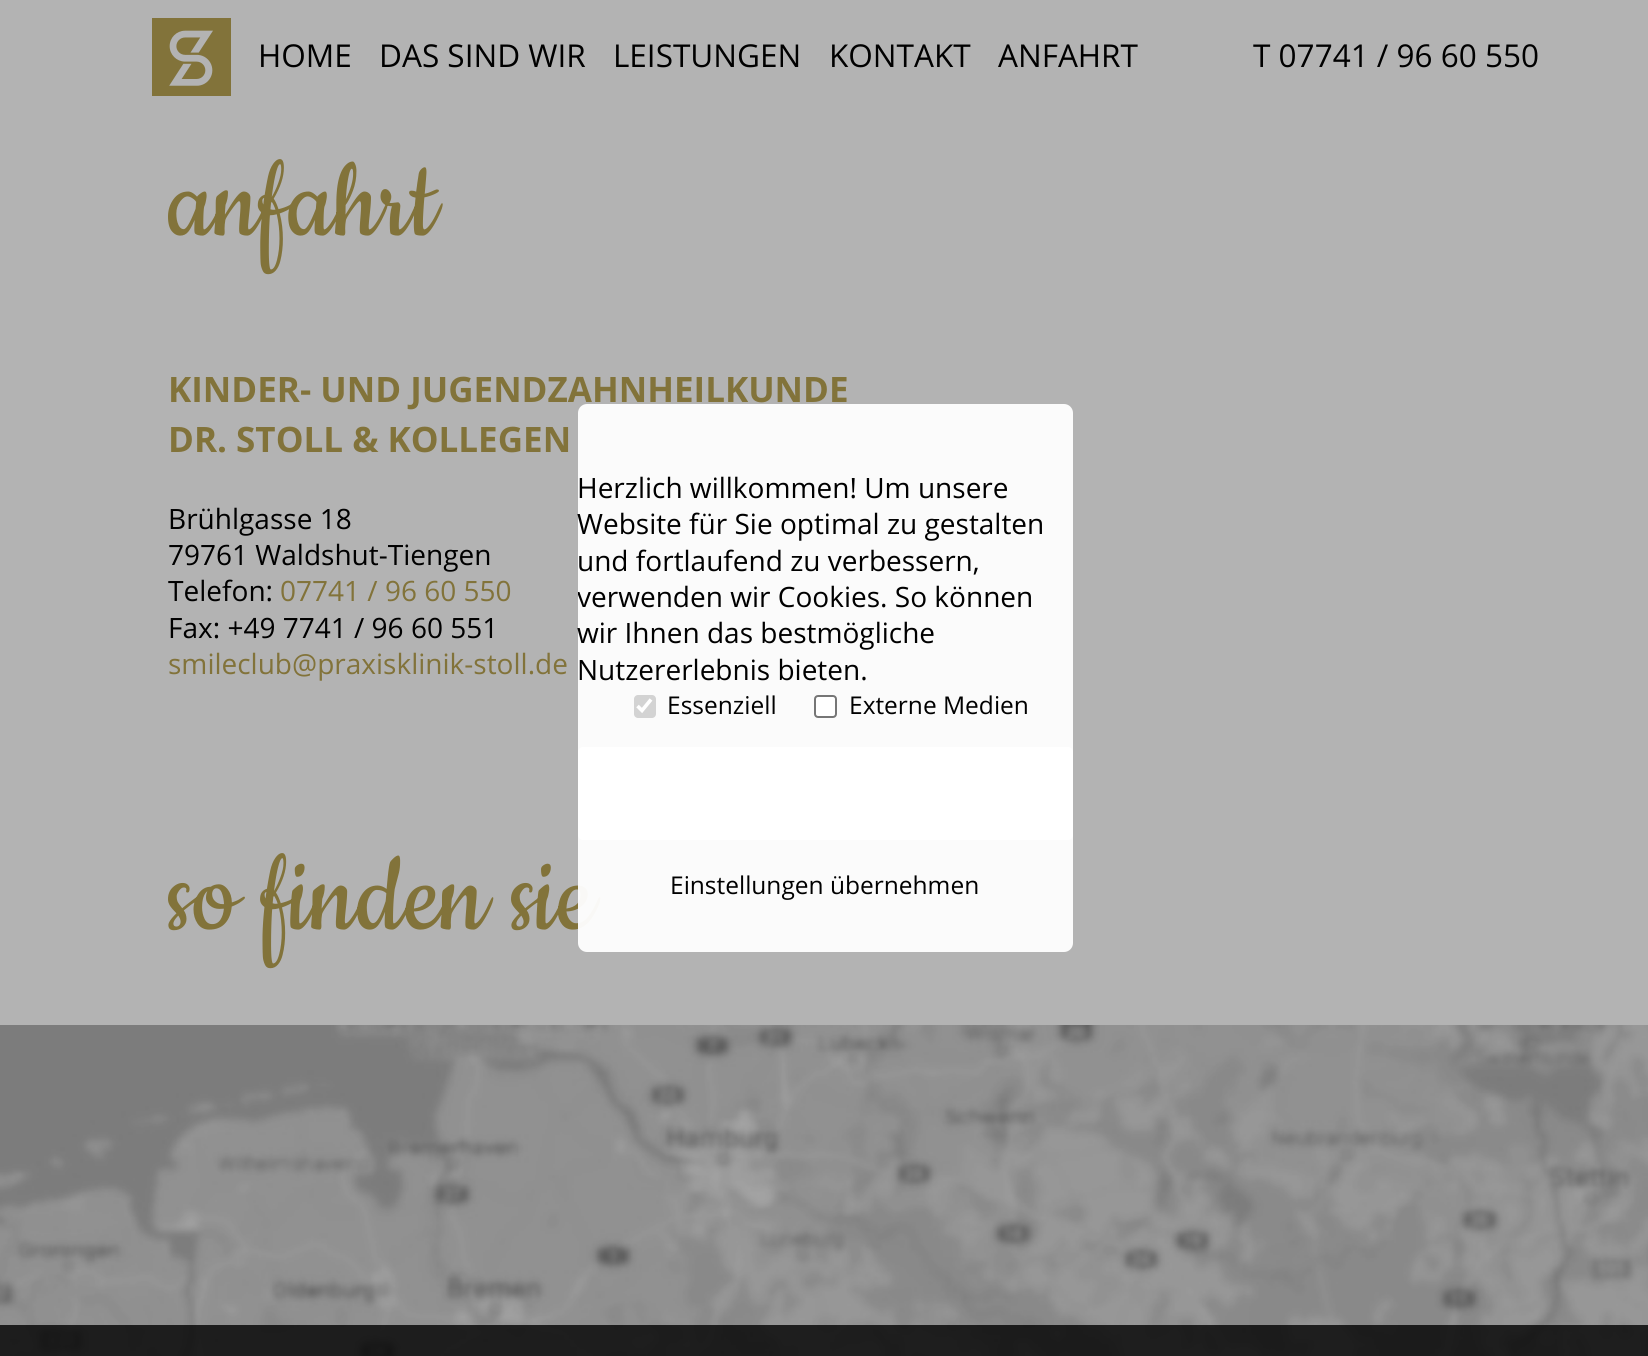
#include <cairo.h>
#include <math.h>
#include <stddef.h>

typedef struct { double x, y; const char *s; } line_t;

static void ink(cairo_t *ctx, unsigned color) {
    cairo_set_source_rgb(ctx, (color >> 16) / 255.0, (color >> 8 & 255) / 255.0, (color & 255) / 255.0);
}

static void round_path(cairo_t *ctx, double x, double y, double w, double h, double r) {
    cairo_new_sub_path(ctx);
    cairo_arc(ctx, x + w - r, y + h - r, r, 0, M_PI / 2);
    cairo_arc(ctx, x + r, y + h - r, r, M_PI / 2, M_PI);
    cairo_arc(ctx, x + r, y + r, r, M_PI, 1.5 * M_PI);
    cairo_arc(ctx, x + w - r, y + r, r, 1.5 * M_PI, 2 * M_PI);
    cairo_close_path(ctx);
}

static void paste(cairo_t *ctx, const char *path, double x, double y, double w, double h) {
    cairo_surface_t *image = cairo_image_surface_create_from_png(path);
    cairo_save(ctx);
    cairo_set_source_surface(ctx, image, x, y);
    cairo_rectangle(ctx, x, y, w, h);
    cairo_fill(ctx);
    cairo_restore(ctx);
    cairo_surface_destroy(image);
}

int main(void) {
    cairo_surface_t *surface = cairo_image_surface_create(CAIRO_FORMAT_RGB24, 1648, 1356);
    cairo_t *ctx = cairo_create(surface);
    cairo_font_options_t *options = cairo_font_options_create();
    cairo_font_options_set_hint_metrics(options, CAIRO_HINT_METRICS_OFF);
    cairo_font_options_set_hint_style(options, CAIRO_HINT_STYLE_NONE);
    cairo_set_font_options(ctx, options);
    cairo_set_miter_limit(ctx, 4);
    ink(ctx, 0xB3B3B3);
    cairo_paint(ctx);
    paste(ctx, "media/1.png", 152, 18, 79, 78);
    cairo_select_font_face(ctx, "Open Sans", CAIRO_FONT_SLANT_NORMAL, CAIRO_FONT_WEIGHT_NORMAL);
    cairo_set_font_size(ctx, 31.5);
    ink(ctx, 0x000000);
    {
        static const line_t items[] = {
            {258, 67, "HOME"},
            {379, 67, "DAS SIND WIR"},
            {613, 67, "LEISTUNGEN"},
            {829, 67, "KONTAKT"},
            {998, 67, "ANFAHRT"},
            {1253, 67, "T 07741 / 96 60 550"},
        };
        for (size_t i = 0; i < sizeof items / sizeof *items; i++) {
            cairo_move_to(ctx, items[i].x, items[i].y);
            cairo_show_text(ctx, items[i].s);
        }
    }
    cairo_select_font_face(ctx, "Cookie", CAIRO_FONT_SLANT_NORMAL, CAIRO_FONT_WEIGHT_NORMAL);
    cairo_set_font_size(ctx, 122.5);
    ink(ctx, 0x82733A);
    cairo_move_to(ctx, 168, 235);
    cairo_show_text(ctx, "anfahrt");
    cairo_select_font_face(ctx, "Open Sans", CAIRO_FONT_SLANT_NORMAL, CAIRO_FONT_WEIGHT_BOLD);
    cairo_set_font_size(ctx, 35);
    cairo_move_to(ctx, 168, 402);
    cairo_show_text(ctx, "KINDER- UND JUGENDZAHNHEILKUNDE");
    cairo_move_to(ctx, 168, 452);
    cairo_show_text(ctx, "DR. STOLL & KOLLEGEN");
    cairo_select_font_face(ctx, "Open Sans", CAIRO_FONT_SLANT_NORMAL, CAIRO_FONT_WEIGHT_NORMAL);
    cairo_set_font_size(ctx, 28);
    ink(ctx, 0x000000);
    {
        static const line_t items[] = {
            {168, 529, "Brühlgasse 18"},
            {168, 565, "79761 Waldshut-Tiengen"},
            {168, 601, "Telefon:"},
        };
        for (size_t i = 0; i < sizeof items / sizeof *items; i++) {
            cairo_move_to(ctx, items[i].x, items[i].y);
            cairo_show_text(ctx, items[i].s);
        }
    }
    ink(ctx, 0x82733A);
    cairo_move_to(ctx, 280, 601);
    cairo_show_text(ctx, "07741 / 96 60 550");
    ink(ctx, 0x000000);
    cairo_move_to(ctx, 168, 638);
    cairo_show_text(ctx, "Fax: +49 7741 / 96 60 551");
    ink(ctx, 0x82733A);
    cairo_move_to(ctx, 168, 674);
    cairo_show_text(ctx, "smileclub@praxisklinik-stoll.de");
    cairo_select_font_face(ctx, "Cookie", CAIRO_FONT_SLANT_NORMAL, CAIRO_FONT_WEIGHT_NORMAL);
    cairo_set_font_size(ctx, 122.5);
    cairo_move_to(ctx, 168, 929);
    cairo_show_text(ctx, "so finden sie");
    paste(ctx, "media/2.png", 0, 1025, 1648, 331);
    cairo_set_source_rgba(ctx, 0, 0, 0, 0.8);
    cairo_rectangle(ctx, 0, 1325, 1648, 31);
    cairo_fill(ctx);
    cairo_set_source_rgba(ctx, 1, 1, 1, 0.95);
    round_path(ctx, 578, 404, 495, 548, 9);
    cairo_fill(ctx);
    cairo_select_font_face(ctx, "Open Sans", CAIRO_FONT_SLANT_NORMAL, CAIRO_FONT_WEIGHT_NORMAL);
    cairo_set_font_size(ctx, 28);
    ink(ctx, 0x000000);
    {
        static const line_t items[] = {
            {577, 498, "Herzlich willkommen! Um unsere"},
            {577, 534, "Website für Sie optimal zu gestalten"},
            {577, 571, "und fortlaufend zu verbessern,"},
        };
        for (size_t i = 0; i < sizeof items / sizeof *items; i++) {
            cairo_move_to(ctx, items[i].x, items[i].y);
            cairo_show_text(ctx, items[i].s);
        }
    }
    cairo_save(ctx);
    round_path(ctx, 578, 404, 495, 548, 9);
    cairo_clip(ctx);
    cairo_move_to(ctx, 577, 607);
    cairo_show_text(ctx, "verwenden wir Cookies. So können");
    cairo_restore(ctx);
    cairo_move_to(ctx, 577, 643);
    cairo_show_text(ctx, "wir Ihnen das bestmögliche");
    cairo_move_to(ctx, 577, 680);
    cairo_show_text(ctx, "Nutzererlebnis bieten.");
    ink(ctx, 0xD3D3D3);
    round_path(ctx, 634, 695, 22, 23, 4);
    cairo_fill(ctx);
    cairo_new_path(ctx);
    cairo_move_to(ctx, 637.5, 706);
    cairo_line_to(ctx, 642, 710.5);
    cairo_line_to(ctx, 651, 699.5);
    ink(ctx, 0xFFFFFF);
    cairo_set_line_width(ctx, 3.6);
    cairo_stroke(ctx);
    cairo_set_font_size(ctx, 24.5);
    ink(ctx, 0x000000);
    cairo_move_to(ctx, 667, 714);
    cairo_show_text(ctx, "Essenziell");
    ink(ctx, 0xFFFFFF);
    round_path(ctx, 815, 696, 21, 21, 3);
    cairo_fill_preserve(ctx);
    ink(ctx, 0x767676);
    cairo_set_line_width(ctx, 2);
    cairo_stroke(ctx);
    ink(ctx, 0x000000);
    cairo_move_to(ctx, 849, 714);
    cairo_show_text(ctx, "Externe Medien");
    ink(ctx, 0xFFFFFF);
    round_path(ctx, 578, 747, 495, 93, 5);
    cairo_fill(ctx);
    ink(ctx, 0x000000);
    cairo_move_to(ctx, 670, 894);
    cairo_show_text(ctx, "Einstellungen übernehmen");
    cairo_surface_write_to_png(surface, "image.png");
    cairo_font_options_destroy(options);
    cairo_destroy(ctx);
    cairo_surface_destroy(surface);
    return 0;
}
